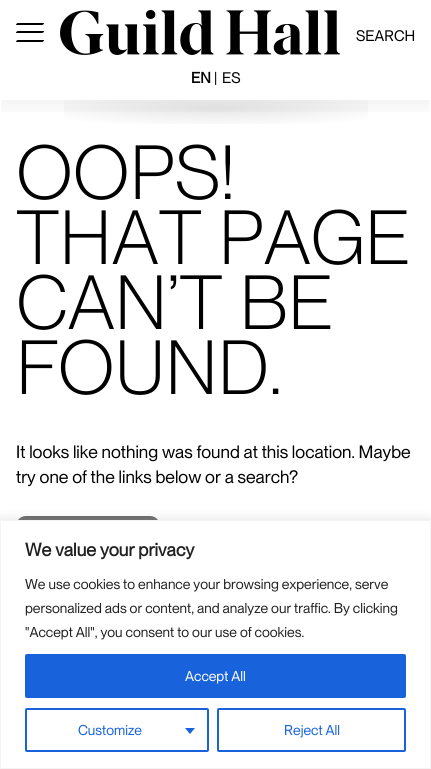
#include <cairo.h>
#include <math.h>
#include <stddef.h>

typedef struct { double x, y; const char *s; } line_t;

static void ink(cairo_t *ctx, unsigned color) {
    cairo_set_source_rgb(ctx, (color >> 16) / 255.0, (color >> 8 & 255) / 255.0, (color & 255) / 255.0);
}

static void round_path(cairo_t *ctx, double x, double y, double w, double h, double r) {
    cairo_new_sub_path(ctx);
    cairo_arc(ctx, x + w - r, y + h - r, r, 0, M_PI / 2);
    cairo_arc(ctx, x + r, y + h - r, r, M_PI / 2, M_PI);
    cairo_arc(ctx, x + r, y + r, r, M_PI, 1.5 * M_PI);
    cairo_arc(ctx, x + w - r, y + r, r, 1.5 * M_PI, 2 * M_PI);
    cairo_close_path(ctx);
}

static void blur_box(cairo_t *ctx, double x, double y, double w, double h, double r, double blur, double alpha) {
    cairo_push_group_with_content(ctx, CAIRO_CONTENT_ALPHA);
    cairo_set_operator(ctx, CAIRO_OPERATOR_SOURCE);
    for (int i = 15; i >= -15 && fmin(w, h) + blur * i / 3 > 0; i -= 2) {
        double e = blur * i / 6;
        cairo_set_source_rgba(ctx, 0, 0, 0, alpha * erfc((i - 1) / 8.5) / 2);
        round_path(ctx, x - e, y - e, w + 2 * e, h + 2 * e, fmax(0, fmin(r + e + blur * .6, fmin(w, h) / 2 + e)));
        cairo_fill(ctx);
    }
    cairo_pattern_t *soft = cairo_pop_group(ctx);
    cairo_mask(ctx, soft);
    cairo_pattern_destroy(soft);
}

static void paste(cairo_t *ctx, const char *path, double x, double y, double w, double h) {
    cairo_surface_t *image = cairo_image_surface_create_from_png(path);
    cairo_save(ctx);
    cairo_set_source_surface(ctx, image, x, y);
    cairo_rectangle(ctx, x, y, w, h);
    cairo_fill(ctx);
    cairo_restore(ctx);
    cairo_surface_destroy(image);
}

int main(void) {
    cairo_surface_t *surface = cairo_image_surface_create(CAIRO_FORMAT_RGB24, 431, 769);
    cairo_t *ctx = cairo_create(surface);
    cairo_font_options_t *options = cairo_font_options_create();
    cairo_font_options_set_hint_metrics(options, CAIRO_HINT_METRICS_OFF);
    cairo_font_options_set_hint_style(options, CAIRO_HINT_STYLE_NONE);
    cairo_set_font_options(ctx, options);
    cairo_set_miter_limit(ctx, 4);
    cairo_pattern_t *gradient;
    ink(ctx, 0xFFFFFF);
    cairo_paint(ctx);
    cairo_save(ctx);
    cairo_rectangle(ctx, 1, 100, 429, 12);
    cairo_clip(ctx);
    ink(ctx, 0x000000);
    blur_box(ctx, 2, 6, 427, 96, 0, 15, 0.08);
    cairo_restore(ctx);
    ink(ctx, 0x000000);
    cairo_new_path(ctx);
    cairo_move_to(ctx, 18, 23);
    cairo_line_to(ctx, 44, 23);
    cairo_curve_to(ctx, 44, 24, 43, 25, 42, 25);
    cairo_line_to(ctx, 16, 25);
    cairo_curve_to(ctx, 16, 24, 17, 23, 18, 23);
    cairo_close_path(ctx);
    cairo_fill(ctx);
    cairo_new_path(ctx);
    cairo_move_to(ctx, 18, 31);
    cairo_line_to(ctx, 44, 31);
    cairo_curve_to(ctx, 44, 32, 43, 33, 42, 33);
    cairo_line_to(ctx, 16, 33);
    cairo_curve_to(ctx, 16, 32, 17, 31, 18, 31);
    cairo_close_path(ctx);
    cairo_fill(ctx);
    cairo_new_path(ctx);
    cairo_move_to(ctx, 18, 40);
    cairo_line_to(ctx, 44, 40);
    cairo_curve_to(ctx, 44, 41, 43, 42, 42, 42);
    cairo_line_to(ctx, 16, 42);
    cairo_curve_to(ctx, 16, 41, 17, 40, 18, 40);
    cairo_close_path(ctx);
    cairo_fill(ctx);
    paste(ctx, "media/1.png", 60, 10, 280, 45);
    cairo_select_font_face(ctx, "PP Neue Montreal", CAIRO_FONT_SLANT_NORMAL, CAIRO_FONT_WEIGHT_NORMAL);
    cairo_set_font_size(ctx, 15);
    cairo_move_to(ctx, 356, 41);
    cairo_show_text(ctx, "SEARCH");
    cairo_select_font_face(ctx, "PP Neue Montreal", CAIRO_FONT_SLANT_NORMAL, CAIRO_FONT_WEIGHT_BOLD);
    cairo_move_to(ctx, 191, 83);
    cairo_show_text(ctx, "EN");
    cairo_select_font_face(ctx, "PP Neue Montreal", CAIRO_FONT_SLANT_NORMAL, CAIRO_FONT_WEIGHT_NORMAL);
    cairo_move_to(ctx, 214, 83);
    cairo_show_text(ctx, "|");
    cairo_move_to(ctx, 222, 83);
    cairo_show_text(ctx, "ES");
    gradient = cairo_pattern_create_radial(0, 0, 0, 0, 0, 1);
    cairo_pattern_set_matrix(gradient, &(cairo_matrix_t){1.0 / 194, 0, 0, 1.0 / 20, -1.0 * 216 / 194, -1.0 * 108 / 20});
    cairo_pattern_add_color_stop_rgba(gradient, 0, 0, 0, 0, 0.1);
    cairo_pattern_add_color_stop_rgba(gradient, 1, 0, 0, 0, 0);
    cairo_set_source(ctx, gradient);
    cairo_pattern_destroy(gradient);
    cairo_rectangle(ctx, 64, 100, 304, 24);
    cairo_fill(ctx);
    cairo_select_font_face(ctx, "PP Neue Montreal Light", CAIRO_FONT_SLANT_NORMAL, CAIRO_FONT_WEIGHT_NORMAL);
    cairo_set_font_size(ctx, 75);
    ink(ctx, 0x000000);
    {
        static const line_t items[] = {
            {16, 199, "OOPS!"},
            {16, 264, "THAT PAGE"},
            {16, 329, "CAN’T BE"},
            {16, 394, "FOUND."},
        };
        for (size_t i = 0; i < sizeof items / sizeof *items; i++) {
            cairo_move_to(ctx, items[i].x, items[i].y);
            cairo_show_text(ctx, items[i].s);
        }
    }
    cairo_select_font_face(ctx, "PP Neue Montreal", CAIRO_FONT_SLANT_NORMAL, CAIRO_FONT_WEIGHT_NORMAL);
    cairo_set_font_size(ctx, 17.6);
    cairo_move_to(ctx, 16, 458);
    cairo_show_text(ctx, "It looks like nothing was found at this location. Maybe");
    cairo_move_to(ctx, 16, 483);
    cairo_show_text(ctx, "try one of the links below or a search?");
    ink(ctx, 0x666666);
    round_path(ctx, 17, 517, 142, 45, 9);
    cairo_fill_preserve(ctx);
    cairo_stroke(ctx);
    ink(ctx, 0xACABAB);
    blur_box(ctx, 0, 519, 431, 249, 0, 5, 0.3);
    ink(ctx, 0xFFFFFF);
    cairo_rectangle(ctx, 0.5, 520.5, 430, 248);
    cairo_fill_preserve(ctx);
    ink(ctx, 0xF4F4F4);
    cairo_set_line_width(ctx, 1);
    cairo_stroke(ctx);
    cairo_select_font_face(ctx, "PP Neue Montreal", CAIRO_FONT_SLANT_NORMAL, CAIRO_FONT_WEIGHT_BOLD);
    cairo_set_font_size(ctx, 18);
    ink(ctx, 0x212121);
    cairo_move_to(ctx, 25, 556);
    cairo_show_text(ctx, "We value your privacy");
    cairo_select_font_face(ctx, "PP Neue Montreal", CAIRO_FONT_SLANT_NORMAL, CAIRO_FONT_WEIGHT_NORMAL);
    cairo_set_font_size(ctx, 14);
    {
        static const line_t items[] = {
            {25, 589, "We use cookies to enhance your browsing experience, serve"},
            {25, 613, "personalized ads or content, and analyze our traffic. By clicking"},
            {25, 637, "\"Accept All\", you consent to our use of cookies."},
        };
        for (size_t i = 0; i < sizeof items / sizeof *items; i++) {
            cairo_move_to(ctx, items[i].x, items[i].y);
            cairo_show_text(ctx, items[i].s);
        }
    }
    ink(ctx, 0x1863DC);
    round_path(ctx, 26, 655, 379, 42, 1);
    cairo_fill_preserve(ctx);
    cairo_set_line_width(ctx, 2);
    cairo_stroke(ctx);
    ink(ctx, 0xFFFFFF);
    cairo_move_to(ctx, 185, 681);
    cairo_show_text(ctx, "Accept All");
    round_path(ctx, 26, 709, 182, 42, 1);
    ink(ctx, 0x1863DC);
    cairo_stroke(ctx);
    cairo_move_to(ctx, 78, 735);
    cairo_show_text(ctx, "Customize");
    cairo_new_path(ctx);
    cairo_move_to(ctx, 185, 728);
    cairo_line_to(ctx, 195, 728);
    cairo_line_to(ctx, 190, 734);
    cairo_close_path(ctx);
    cairo_fill(ctx);
    round_path(ctx, 218, 709, 187, 42, 1);
    cairo_stroke(ctx);
    cairo_move_to(ctx, 284, 735);
    cairo_show_text(ctx, "Reject All");
    cairo_surface_write_to_png(surface, "image.png");
    cairo_font_options_destroy(options);
    cairo_destroy(ctx);
    cairo_surface_destroy(surface);
    return 0;
}
